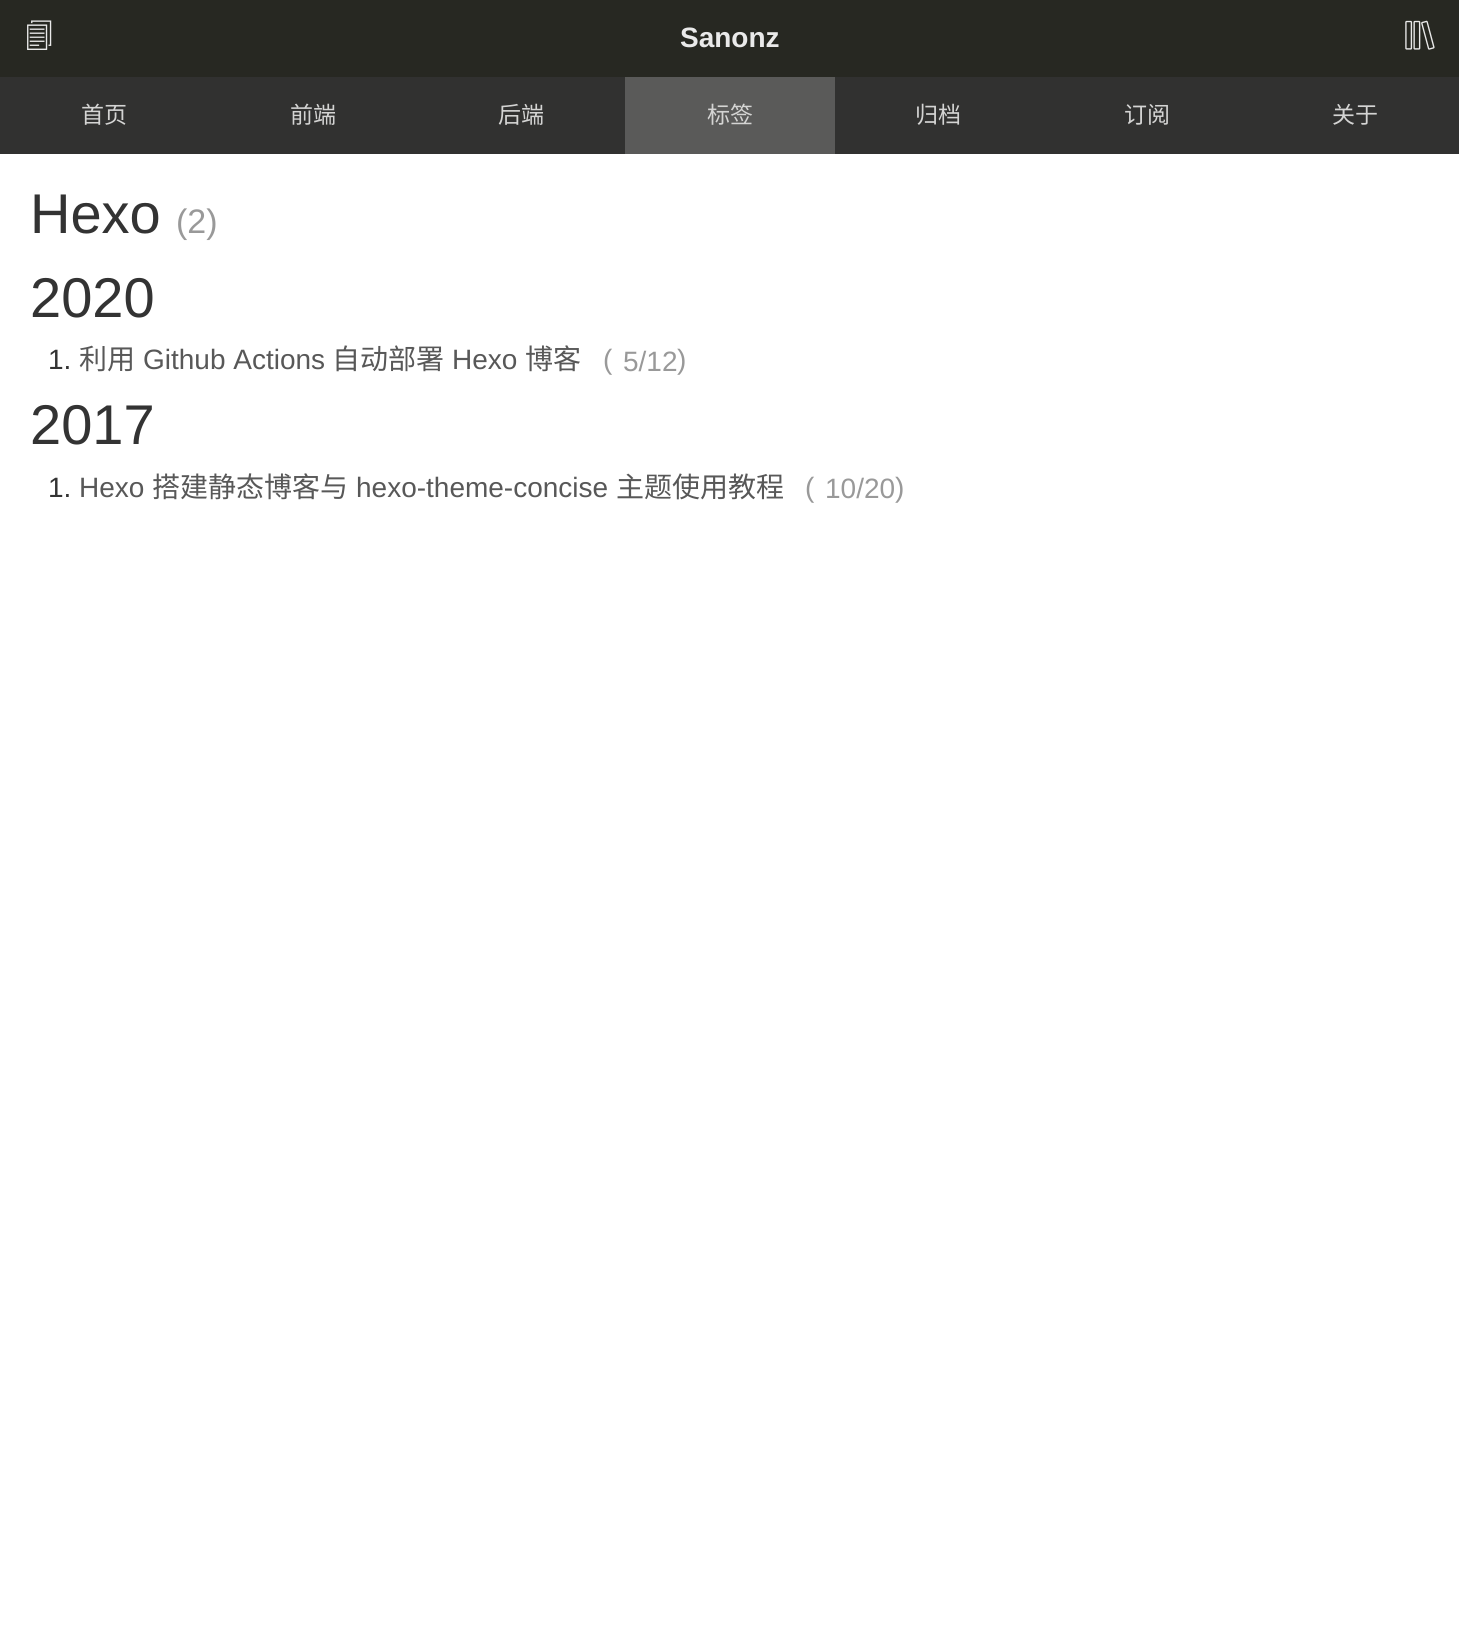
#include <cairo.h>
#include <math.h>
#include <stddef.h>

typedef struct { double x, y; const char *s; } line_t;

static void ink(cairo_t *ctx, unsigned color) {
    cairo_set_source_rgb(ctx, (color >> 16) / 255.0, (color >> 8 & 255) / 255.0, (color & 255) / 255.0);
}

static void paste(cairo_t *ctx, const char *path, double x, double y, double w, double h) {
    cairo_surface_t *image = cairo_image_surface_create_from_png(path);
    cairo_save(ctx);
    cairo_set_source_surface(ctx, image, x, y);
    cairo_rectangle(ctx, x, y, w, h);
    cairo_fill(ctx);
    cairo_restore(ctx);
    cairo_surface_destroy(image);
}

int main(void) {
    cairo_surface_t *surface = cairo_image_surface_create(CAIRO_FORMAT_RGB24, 1459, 1640);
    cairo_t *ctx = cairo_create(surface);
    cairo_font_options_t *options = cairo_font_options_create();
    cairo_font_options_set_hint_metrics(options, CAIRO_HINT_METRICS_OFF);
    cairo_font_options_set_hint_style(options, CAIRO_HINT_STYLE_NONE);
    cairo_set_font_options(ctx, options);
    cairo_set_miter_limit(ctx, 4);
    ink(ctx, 0xFFFFFF);
    cairo_paint(ctx);
    ink(ctx, 0x272822);
    cairo_rectangle(ctx, 0, 0, 1459, 77);
    cairo_fill(ctx);
    paste(ctx, "media/1.png", 27, 20, 25, 30);
    cairo_select_font_face(ctx, "Liberation Sans", CAIRO_FONT_SLANT_NORMAL, CAIRO_FONT_WEIGHT_BOLD);
    cairo_set_font_size(ctx, 28);
    ink(ctx, 0xEAEAEA);
    cairo_move_to(ctx, 680, 47);
    cairo_show_text(ctx, "Sanonz");
    paste(ctx, "media/2.png", 1405, 20, 30, 30);
    ink(ctx, 0x313130);
    cairo_rectangle(ctx, 0, 77, 1459, 77);
    cairo_fill(ctx);
    cairo_select_font_face(ctx, "Noto Sans CJK SC", CAIRO_FONT_SLANT_NORMAL, CAIRO_FONT_WEIGHT_NORMAL);
    cairo_set_font_size(ctx, 23);
    ink(ctx, 0xD4D4D3);
    {
        static const line_t items[] = {
            {81, 123, "首页"},
            {290, 123, "前端"},
            {498, 123, "后端"},
        };
        for (size_t i = 0; i < sizeof items / sizeof *items; i++) {
            cairo_move_to(ctx, items[i].x, items[i].y);
            cairo_show_text(ctx, items[i].s);
        }
    }
    ink(ctx, 0x5A5A59);
    cairo_rectangle(ctx, 625, 77, 210, 77);
    cairo_fill(ctx);
    ink(ctx, 0xD4D4D3);
    {
        static const line_t items[] = {
            {707, 123, "标签"},
            {915, 123, "归档"},
            {1124, 123, "订阅"},
            {1332, 123, "关于"},
        };
        for (size_t i = 0; i < sizeof items / sizeof *items; i++) {
            cairo_move_to(ctx, items[i].x, items[i].y);
            cairo_show_text(ctx, items[i].s);
        }
    }
    cairo_select_font_face(ctx, "Liberation Sans", CAIRO_FONT_SLANT_NORMAL, CAIRO_FONT_WEIGHT_NORMAL);
    cairo_set_font_size(ctx, 56);
    ink(ctx, 0x333333);
    cairo_move_to(ctx, 30, 233);
    cairo_show_text(ctx, "Hexo");
    cairo_set_font_size(ctx, 34);
    ink(ctx, 0x999999);
    cairo_move_to(ctx, 176, 233);
    cairo_show_text(ctx, "(2)");
    cairo_set_font_size(ctx, 56);
    ink(ctx, 0x333333);
    cairo_move_to(ctx, 30, 317);
    cairo_show_text(ctx, "2020");
    cairo_set_font_size(ctx, 28);
    cairo_move_to(ctx, 48, 369);
    cairo_show_text(ctx, "1.");
    cairo_select_font_face(ctx, "Noto Sans CJK SC", CAIRO_FONT_SLANT_NORMAL, CAIRO_FONT_WEIGHT_NORMAL);
    ink(ctx, 0x585858);
    cairo_move_to(ctx, 79, 369);
    cairo_show_text(ctx, "利用");
    cairo_select_font_face(ctx, "Liberation Sans", CAIRO_FONT_SLANT_NORMAL, CAIRO_FONT_WEIGHT_NORMAL);
    cairo_move_to(ctx, 143, 369);
    cairo_show_text(ctx, "Github Actions");
    cairo_select_font_face(ctx, "Noto Sans CJK SC", CAIRO_FONT_SLANT_NORMAL, CAIRO_FONT_WEIGHT_NORMAL);
    cairo_move_to(ctx, 332, 369);
    cairo_show_text(ctx, "自动部署");
    cairo_select_font_face(ctx, "Liberation Sans", CAIRO_FONT_SLANT_NORMAL, CAIRO_FONT_WEIGHT_NORMAL);
    cairo_move_to(ctx, 452, 369);
    cairo_show_text(ctx, "Hexo");
    cairo_select_font_face(ctx, "Noto Sans CJK SC", CAIRO_FONT_SLANT_NORMAL, CAIRO_FONT_WEIGHT_NORMAL);
    cairo_move_to(ctx, 525, 369);
    cairo_show_text(ctx, "博客");
    cairo_select_font_face(ctx, "Liberation Sans", CAIRO_FONT_SLANT_NORMAL, CAIRO_FONT_WEIGHT_NORMAL);
    ink(ctx, 0x999999);
    {
        static const line_t items[] = {
            {603, 369, "("},
            {623, 371, "5/12"},
            {677, 369, ")"},
        };
        for (size_t i = 0; i < sizeof items / sizeof *items; i++) {
            cairo_move_to(ctx, items[i].x, items[i].y);
            cairo_show_text(ctx, items[i].s);
        }
    }
    cairo_set_font_size(ctx, 56);
    ink(ctx, 0x333333);
    cairo_move_to(ctx, 30, 444);
    cairo_show_text(ctx, "2017");
    cairo_set_font_size(ctx, 28);
    cairo_move_to(ctx, 48, 497);
    cairo_show_text(ctx, "1.");
    ink(ctx, 0x585858);
    cairo_move_to(ctx, 79, 497);
    cairo_show_text(ctx, "Hexo");
    cairo_select_font_face(ctx, "Noto Sans CJK SC", CAIRO_FONT_SLANT_NORMAL, CAIRO_FONT_WEIGHT_NORMAL);
    cairo_move_to(ctx, 152, 497);
    cairo_show_text(ctx, "搭建静态博客与");
    cairo_select_font_face(ctx, "Liberation Sans", CAIRO_FONT_SLANT_NORMAL, CAIRO_FONT_WEIGHT_NORMAL);
    cairo_move_to(ctx, 356, 497);
    cairo_show_text(ctx, "hexo-theme-concise");
    cairo_select_font_face(ctx, "Noto Sans CJK SC", CAIRO_FONT_SLANT_NORMAL, CAIRO_FONT_WEIGHT_NORMAL);
    cairo_move_to(ctx, 616, 497);
    cairo_show_text(ctx, "主题使用教程");
    cairo_select_font_face(ctx, "Liberation Sans", CAIRO_FONT_SLANT_NORMAL, CAIRO_FONT_WEIGHT_NORMAL);
    ink(ctx, 0x999999);
    {
        static const line_t items[] = {
            {805, 497, "("},
            {825, 498, "10/20"},
            {895, 497, ")"},
        };
        for (size_t i = 0; i < sizeof items / sizeof *items; i++) {
            cairo_move_to(ctx, items[i].x, items[i].y);
            cairo_show_text(ctx, items[i].s);
        }
    }
    cairo_surface_write_to_png(surface, "image.png");
    cairo_font_options_destroy(options);
    cairo_destroy(ctx);
    cairo_surface_destroy(surface);
    return 0;
}
